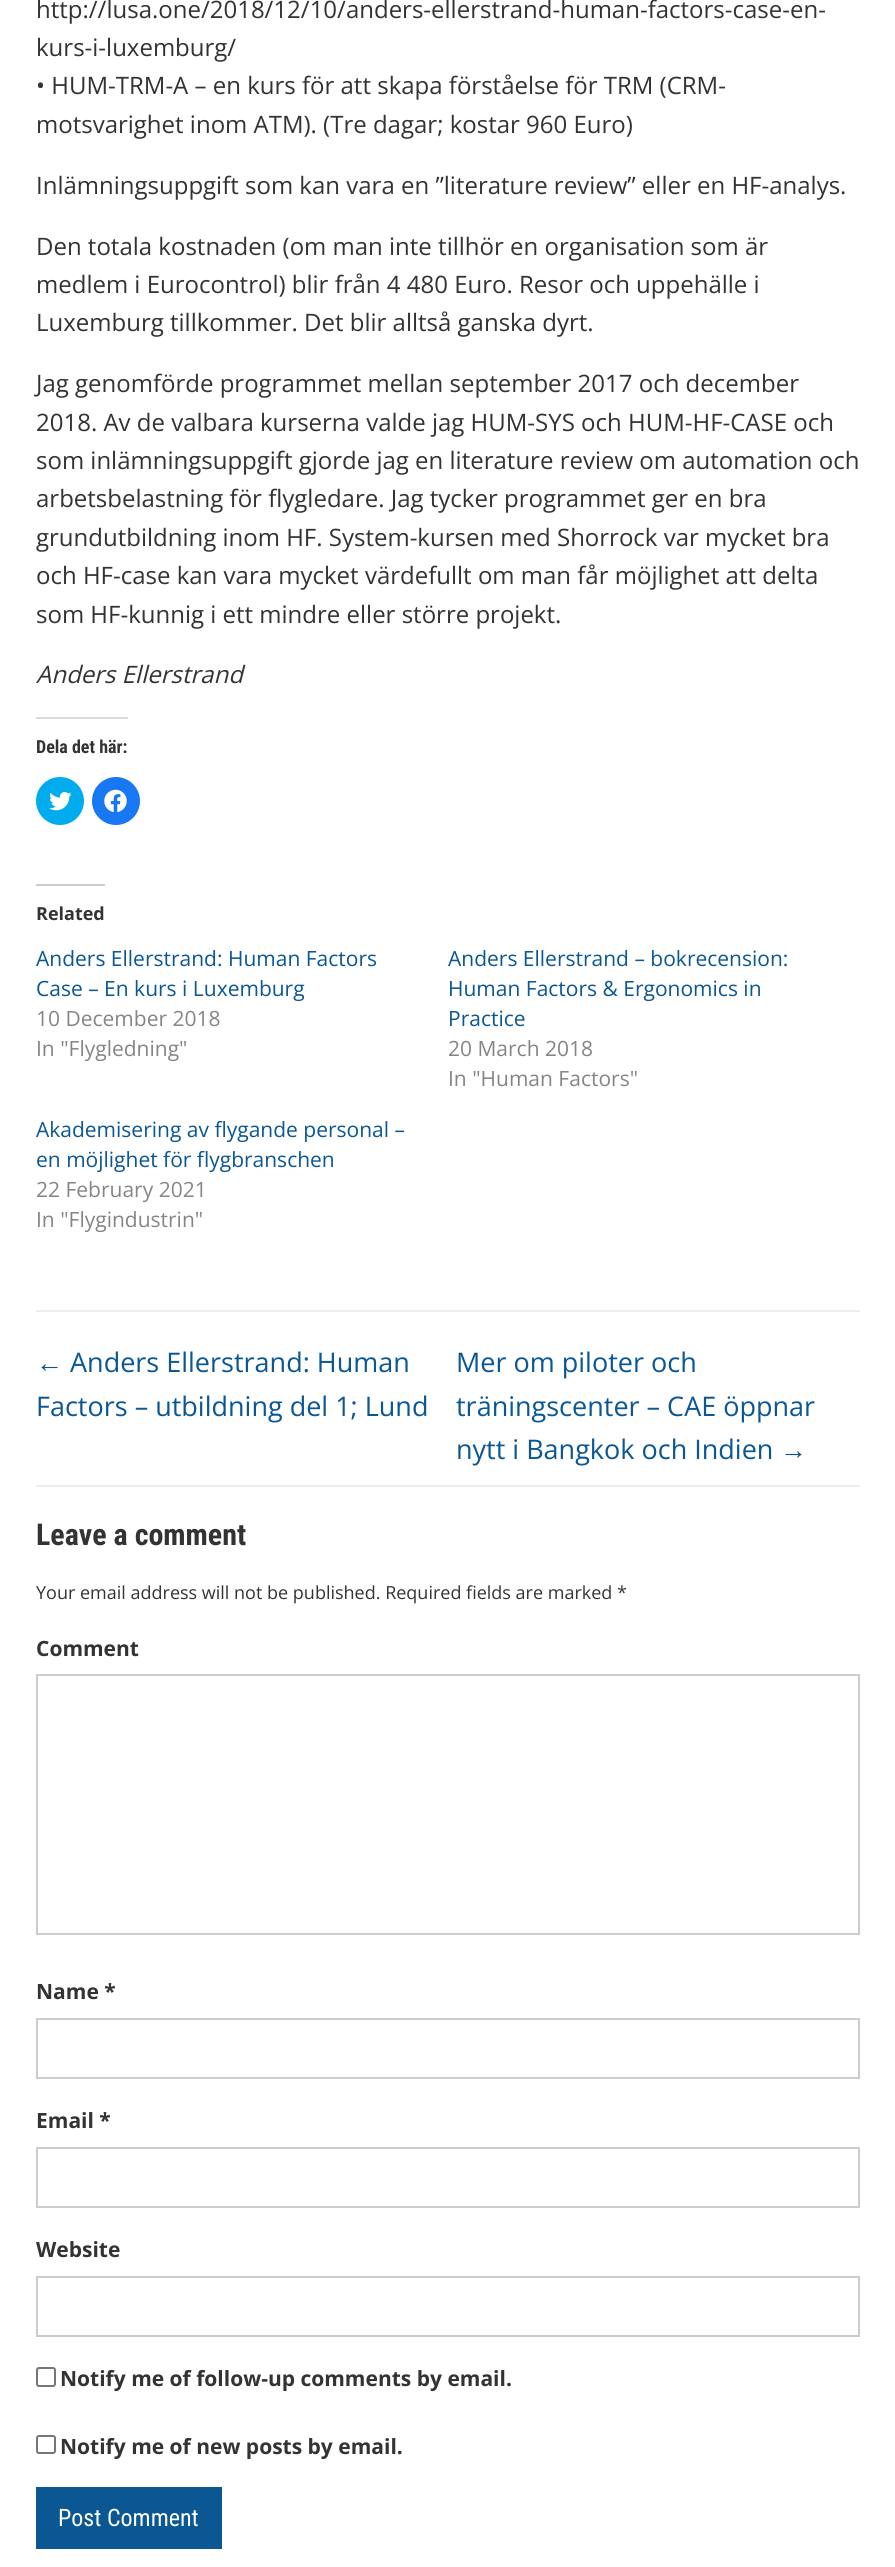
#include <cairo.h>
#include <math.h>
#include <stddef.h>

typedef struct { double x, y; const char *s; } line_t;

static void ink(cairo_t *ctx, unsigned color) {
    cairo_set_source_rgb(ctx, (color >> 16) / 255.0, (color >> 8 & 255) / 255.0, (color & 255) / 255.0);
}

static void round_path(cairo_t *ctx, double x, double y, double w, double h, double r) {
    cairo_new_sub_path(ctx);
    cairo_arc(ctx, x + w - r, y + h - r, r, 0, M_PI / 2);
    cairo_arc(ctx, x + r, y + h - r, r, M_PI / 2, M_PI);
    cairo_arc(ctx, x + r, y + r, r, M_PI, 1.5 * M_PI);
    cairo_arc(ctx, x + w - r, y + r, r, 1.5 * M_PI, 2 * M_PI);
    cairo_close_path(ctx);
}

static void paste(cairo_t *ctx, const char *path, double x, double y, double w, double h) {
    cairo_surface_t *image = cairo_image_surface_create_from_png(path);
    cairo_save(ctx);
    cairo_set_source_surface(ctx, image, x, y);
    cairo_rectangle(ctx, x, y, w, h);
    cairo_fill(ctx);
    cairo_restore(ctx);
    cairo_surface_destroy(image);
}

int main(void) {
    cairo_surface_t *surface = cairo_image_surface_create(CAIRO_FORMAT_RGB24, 895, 2567);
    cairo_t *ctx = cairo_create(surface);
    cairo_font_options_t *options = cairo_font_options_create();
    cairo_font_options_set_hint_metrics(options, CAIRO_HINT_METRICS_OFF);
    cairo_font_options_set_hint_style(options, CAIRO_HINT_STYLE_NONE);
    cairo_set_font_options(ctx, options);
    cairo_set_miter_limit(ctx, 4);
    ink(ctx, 0xFFFFFF);
    cairo_paint(ctx);
    cairo_select_font_face(ctx, "Open Sans", CAIRO_FONT_SLANT_NORMAL, CAIRO_FONT_WEIGHT_NORMAL);
    cairo_set_font_size(ctx, 24);
    ink(ctx, 0x333333);
    {
        static const line_t items[] = {
            {36, 18, "http://lusa.one/2018/12/10/anders-ellerstrand-human-factors-case-en-"},
            {36, 56, "kurs-i-luxemburg/"},
            {36, 94, "• HUM-TRM-A – en kurs för att skapa förståelse för TRM (CRM-"},
            {36, 133, "motsvarighet inom ATM). (Tre dagar; kostar 960 Euro)"},
            {36, 194, "Inlämningsuppgift som kan vara en ”literature review” eller en HF-analys."},
            {36, 255, "Den totala kostnaden (om man inte tillhör en organisation som är"},
            {36, 293, "medlem i Eurocontrol) blir från 4 480 Euro. Resor och uppehälle i"},
            {36, 331, "Luxemburg tillkommer. Det blir alltså ganska dyrt."},
            {36, 392, "Jag genomförde programmet mellan september 2017 och december"},
            {36, 431, "2018. Av de valbara kurserna valde jag HUM-SYS och HUM-HF-CASE och"},
            {36, 469, "som inlämningsuppgift gjorde jag en literature review om automation och"},
            {36, 507, "arbetsbelastning för flygledare. Jag tycker programmet ger en bra"},
            {36, 546, "grundutbildning inom HF. System-kursen med Shorrock var mycket bra"},
            {36, 584, "och HF-case kan vara mycket värdefullt om man får möjlighet att delta"},
            {36, 623, "som HF-kunnig i ett mindre eller större projekt."},
        };
        for (size_t i = 0; i < sizeof items / sizeof *items; i++) {
            cairo_move_to(ctx, items[i].x, items[i].y);
            cairo_show_text(ctx, items[i].s);
        }
    }
    cairo_select_font_face(ctx, "Open Sans", CAIRO_FONT_SLANT_ITALIC, CAIRO_FONT_WEIGHT_NORMAL);
    cairo_move_to(ctx, 36, 683);
    cairo_show_text(ctx, "Anders Ellerstrand");
    ink(ctx, 0xDCDCDE);
    cairo_rectangle(ctx, 36, 717, 92, 2);
    cairo_fill(ctx);
    cairo_select_font_face(ctx, "Roboto Condensed", CAIRO_FONT_SLANT_NORMAL, CAIRO_FONT_WEIGHT_BOLD);
    cairo_set_font_size(ctx, 18);
    ink(ctx, 0x333333);
    cairo_move_to(ctx, 36, 753);
    cairo_show_text(ctx, "Dela det här:");
    ink(ctx, 0x00ACEE);
    cairo_new_path(ctx);
    cairo_arc(ctx, 60, 801, 24, 0, 2 * M_PI);
    cairo_fill(ctx);
    paste(ctx, "media/1.png", 49, 792, 23, 19);
    ink(ctx, 0x1877F2);
    cairo_arc(ctx, 116, 801, 24, 0, 2 * M_PI);
    cairo_fill(ctx);
    paste(ctx, "media/2.png", 104, 789, 23, 24);
    ink(ctx, 0xCCCCCC);
    cairo_rectangle(ctx, 36, 884, 69, 2);
    cairo_fill(ctx);
    cairo_select_font_face(ctx, "Open Sans", CAIRO_FONT_SLANT_NORMAL, CAIRO_FONT_WEIGHT_BOLD);
    ink(ctx, 0x333333);
    cairo_move_to(ctx, 36, 920);
    cairo_show_text(ctx, "Related");
    cairo_select_font_face(ctx, "Open Sans", CAIRO_FONT_SLANT_NORMAL, CAIRO_FONT_WEIGHT_NORMAL);
    cairo_set_font_size(ctx, 21);
    ink(ctx, 0x0A5794);
    cairo_move_to(ctx, 36, 966);
    cairo_show_text(ctx, "Anders Ellerstrand: Human Factors");
    cairo_move_to(ctx, 36, 996);
    cairo_show_text(ctx, "Case – En kurs i Luxemburg");
    ink(ctx, 0x858585);
    cairo_move_to(ctx, 36, 1026);
    cairo_show_text(ctx, "10 December 2018");
    cairo_move_to(ctx, 36, 1056);
    cairo_show_text(ctx, "In \"Flygledning\"");
    ink(ctx, 0x0A5794);
    {
        static const line_t items[] = {
            {448, 966, "Anders Ellerstrand – bokrecension:"},
            {448, 996, "Human Factors & Ergonomics in"},
            {448, 1026, "Practice"},
        };
        for (size_t i = 0; i < sizeof items / sizeof *items; i++) {
            cairo_move_to(ctx, items[i].x, items[i].y);
            cairo_show_text(ctx, items[i].s);
        }
    }
    ink(ctx, 0x858585);
    cairo_move_to(ctx, 448, 1056);
    cairo_show_text(ctx, "20 March 2018");
    cairo_move_to(ctx, 448, 1086);
    cairo_show_text(ctx, "In \"Human Factors\"");
    ink(ctx, 0x0A5794);
    cairo_move_to(ctx, 36, 1137);
    cairo_show_text(ctx, "Akademisering av flygande personal –");
    cairo_move_to(ctx, 36, 1167);
    cairo_show_text(ctx, "en möjlighet för flygbranschen");
    ink(ctx, 0x858585);
    cairo_move_to(ctx, 36, 1197);
    cairo_show_text(ctx, "22 February 2021");
    cairo_move_to(ctx, 36, 1227);
    cairo_show_text(ctx, "In \"Flygindustrin\"");
    ink(ctx, 0xEEEEEE);
    cairo_rectangle(ctx, 36, 1310, 824, 2);
    cairo_fill(ctx);
    cairo_select_font_face(ctx, "Liberation Sans", CAIRO_FONT_SLANT_NORMAL, CAIRO_FONT_WEIGHT_NORMAL);
    cairo_set_font_size(ctx, 27);
    ink(ctx, 0x0A5794);
    cairo_move_to(ctx, 36, 1372);
    cairo_show_text(ctx, "←");
    cairo_select_font_face(ctx, "Open Sans", CAIRO_FONT_SLANT_NORMAL, CAIRO_FONT_WEIGHT_NORMAL);
    {
        static const line_t items[] = {
            {70, 1372, "Anders Ellerstrand: Human"},
            {36, 1416, "Factors – utbildning del 1; Lund"},
            {456, 1372, "Mer om piloter och"},
            {456, 1416, "träningscenter – CAE öppnar"},
            {456, 1459, "nytt i Bangkok och Indien"},
        };
        for (size_t i = 0; i < sizeof items / sizeof *items; i++) {
            cairo_move_to(ctx, items[i].x, items[i].y);
            cairo_show_text(ctx, items[i].s);
        }
    }
    cairo_select_font_face(ctx, "Liberation Sans", CAIRO_FONT_SLANT_NORMAL, CAIRO_FONT_WEIGHT_NORMAL);
    cairo_move_to(ctx, 780, 1459);
    cairo_show_text(ctx, "→");
    ink(ctx, 0xEEEEEE);
    cairo_rectangle(ctx, 36, 1485, 824, 2);
    cairo_fill(ctx);
    cairo_select_font_face(ctx, "Roboto Condensed", CAIRO_FONT_SLANT_NORMAL, CAIRO_FONT_WEIGHT_BOLD);
    cairo_set_font_size(ctx, 30);
    ink(ctx, 0x333333);
    cairo_move_to(ctx, 36, 1545);
    cairo_show_text(ctx, "Leave a comment");
    cairo_select_font_face(ctx, "Open Sans", CAIRO_FONT_SLANT_NORMAL, CAIRO_FONT_WEIGHT_NORMAL);
    cairo_set_font_size(ctx, 18);
    cairo_move_to(ctx, 36, 1599);
    cairo_show_text(ctx, "Your email address will not be published. Required fields are marked *");
    cairo_select_font_face(ctx, "Open Sans", CAIRO_FONT_SLANT_NORMAL, CAIRO_FONT_WEIGHT_BOLD);
    cairo_set_font_size(ctx, 21);
    cairo_move_to(ctx, 36, 1656);
    cairo_show_text(ctx, "Comment");
    cairo_rectangle(ctx, 37, 1675, 822, 259);
    ink(ctx, 0xCCCCCC);
    cairo_stroke(ctx);
    ink(ctx, 0x333333);
    cairo_move_to(ctx, 36, 1999);
    cairo_show_text(ctx, "Name *");
    cairo_rectangle(ctx, 37, 2019, 822, 59);
    ink(ctx, 0xCCCCCC);
    cairo_stroke(ctx);
    ink(ctx, 0x333333);
    cairo_move_to(ctx, 36, 2128);
    cairo_show_text(ctx, "Email *");
    cairo_rectangle(ctx, 37, 2148, 822, 59);
    ink(ctx, 0xCCCCCC);
    cairo_stroke(ctx);
    ink(ctx, 0x333333);
    cairo_move_to(ctx, 36, 2257);
    cairo_show_text(ctx, "Website");
    cairo_rectangle(ctx, 37, 2277, 822, 59);
    ink(ctx, 0xCCCCCC);
    cairo_stroke(ctx);
    round_path(ctx, 37, 2368, 18, 18, 2);
    ink(ctx, 0x767676);
    cairo_stroke(ctx);
    ink(ctx, 0x333333);
    cairo_move_to(ctx, 60, 2386);
    cairo_show_text(ctx, "Notify me of follow-up comments by email.");
    round_path(ctx, 37, 2436, 18, 17, 2);
    ink(ctx, 0x767676);
    cairo_stroke(ctx);
    ink(ctx, 0x333333);
    cairo_move_to(ctx, 60, 2454);
    cairo_show_text(ctx, "Notify me of new posts by email.");
    ink(ctx, 0x0A5794);
    cairo_rectangle(ctx, 36, 2487, 186, 62);
    cairo_fill(ctx);
    cairo_select_font_face(ctx, "Roboto Condensed", CAIRO_FONT_SLANT_NORMAL, CAIRO_FONT_WEIGHT_NORMAL);
    cairo_set_font_size(ctx, 24);
    ink(ctx, 0xFFFFFF);
    cairo_move_to(ctx, 58, 2526);
    cairo_show_text(ctx, "Post Comment");
    cairo_surface_write_to_png(surface, "image.png");
    cairo_font_options_destroy(options);
    cairo_destroy(ctx);
    cairo_surface_destroy(surface);
    return 0;
}
